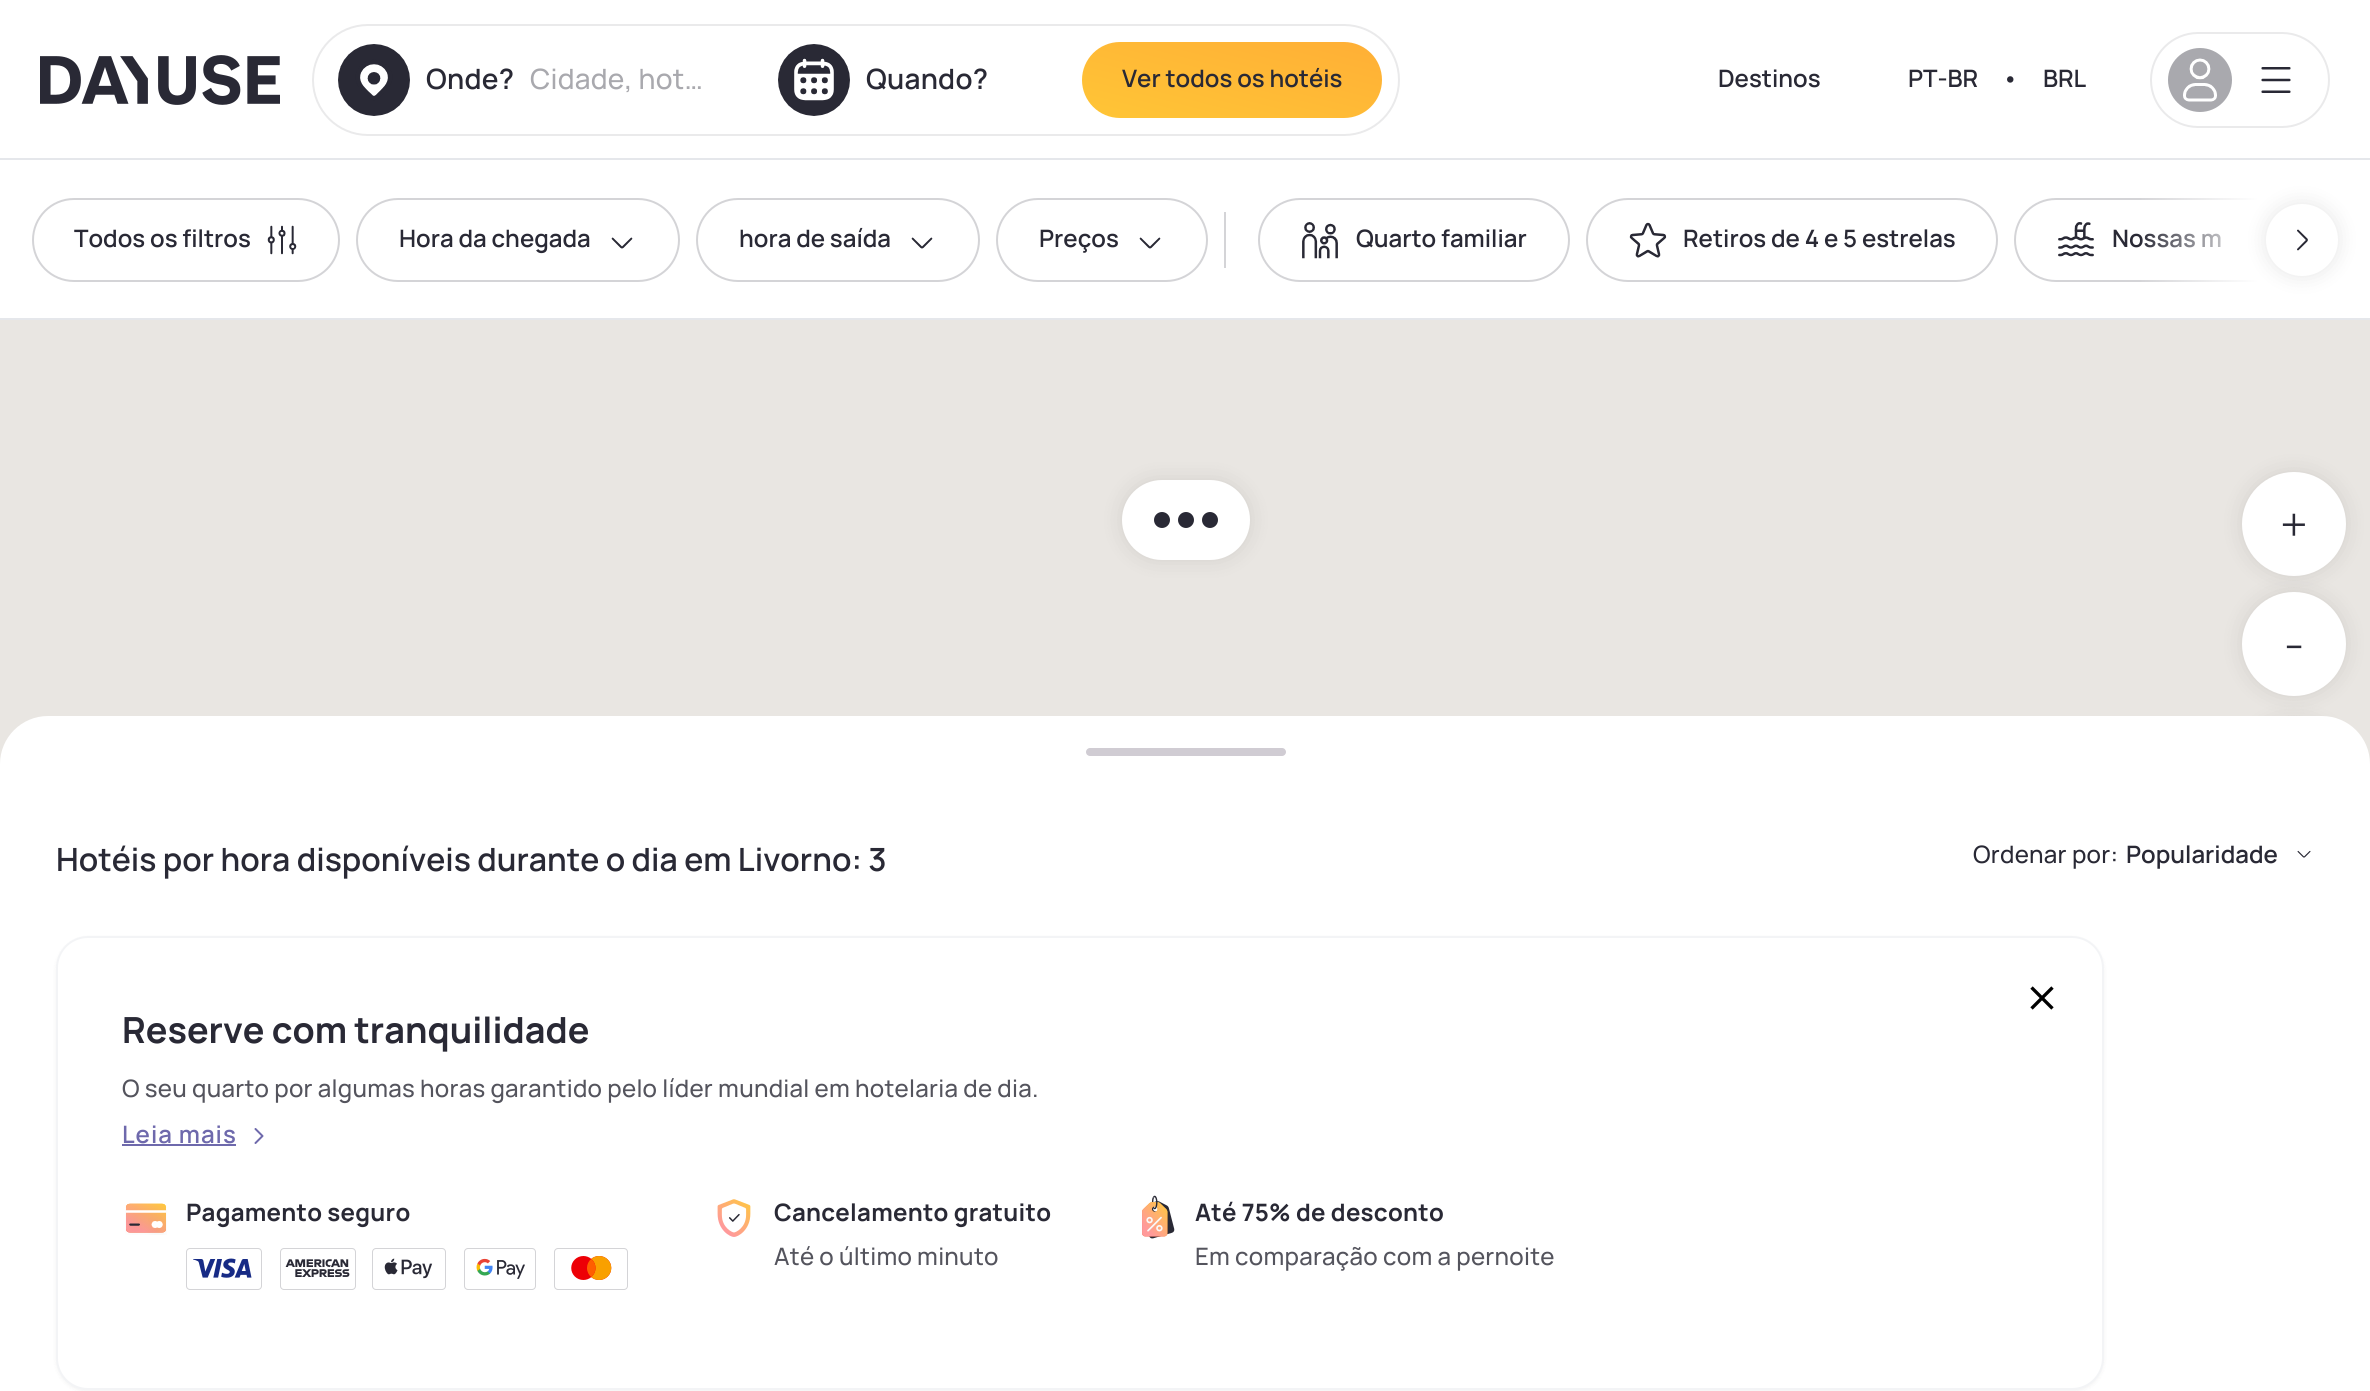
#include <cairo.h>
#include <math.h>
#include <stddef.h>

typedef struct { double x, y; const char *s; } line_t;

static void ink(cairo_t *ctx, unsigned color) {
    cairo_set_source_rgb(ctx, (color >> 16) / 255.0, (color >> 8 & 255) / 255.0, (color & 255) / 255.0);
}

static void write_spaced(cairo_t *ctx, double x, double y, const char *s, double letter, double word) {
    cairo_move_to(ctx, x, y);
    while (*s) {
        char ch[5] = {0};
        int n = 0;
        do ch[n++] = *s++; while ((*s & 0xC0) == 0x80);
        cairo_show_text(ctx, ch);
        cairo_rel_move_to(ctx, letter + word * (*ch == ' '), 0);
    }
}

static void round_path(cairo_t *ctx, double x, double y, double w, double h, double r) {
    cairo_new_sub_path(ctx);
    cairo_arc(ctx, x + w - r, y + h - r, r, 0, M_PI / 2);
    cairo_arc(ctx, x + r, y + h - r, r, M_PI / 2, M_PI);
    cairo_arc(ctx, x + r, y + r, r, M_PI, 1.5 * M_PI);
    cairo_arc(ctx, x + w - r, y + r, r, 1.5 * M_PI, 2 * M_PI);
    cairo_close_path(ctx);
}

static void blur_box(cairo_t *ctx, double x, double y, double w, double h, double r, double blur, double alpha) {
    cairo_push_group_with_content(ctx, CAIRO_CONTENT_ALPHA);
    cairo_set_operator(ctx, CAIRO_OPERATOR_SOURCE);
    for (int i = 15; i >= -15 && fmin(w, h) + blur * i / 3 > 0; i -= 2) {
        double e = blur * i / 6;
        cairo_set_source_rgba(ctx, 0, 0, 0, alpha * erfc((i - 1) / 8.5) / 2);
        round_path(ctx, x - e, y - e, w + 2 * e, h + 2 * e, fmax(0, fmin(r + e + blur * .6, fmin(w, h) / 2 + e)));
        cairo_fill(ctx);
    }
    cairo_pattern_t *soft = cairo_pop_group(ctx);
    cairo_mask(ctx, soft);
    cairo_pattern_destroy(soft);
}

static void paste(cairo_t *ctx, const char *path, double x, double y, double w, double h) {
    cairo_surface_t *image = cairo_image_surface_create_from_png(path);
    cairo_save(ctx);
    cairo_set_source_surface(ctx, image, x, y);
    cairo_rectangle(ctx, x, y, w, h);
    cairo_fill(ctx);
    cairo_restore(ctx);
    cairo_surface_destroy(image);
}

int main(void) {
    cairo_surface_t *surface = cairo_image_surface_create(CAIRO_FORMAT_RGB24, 2370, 1391);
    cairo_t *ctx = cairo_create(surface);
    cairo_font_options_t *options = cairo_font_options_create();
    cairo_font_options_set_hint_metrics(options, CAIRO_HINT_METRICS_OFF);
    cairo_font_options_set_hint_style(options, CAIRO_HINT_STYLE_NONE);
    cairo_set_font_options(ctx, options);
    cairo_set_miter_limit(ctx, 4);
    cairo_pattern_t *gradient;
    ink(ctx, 0xFFFFFF);
    cairo_paint(ctx);
    ink(ctx, 0xE5E7EB);
    cairo_rectangle(ctx, 0, 158, 2370, 2);
    cairo_fill(ctx);
    paste(ctx, "media/1.png", 40, 55, 240, 50);
    round_path(ctx, 313, 25, 1086, 110, 55);
    ink(ctx, 0xEAEAEB);
    cairo_stroke(ctx);
    paste(ctx, "media/2.png", 338, 44, 72, 72);
    cairo_select_font_face(ctx, "Manrope SemiBold", CAIRO_FONT_SLANT_NORMAL, CAIRO_FONT_WEIGHT_NORMAL);
    cairo_set_font_size(ctx, 28);
    ink(ctx, 0x292935);
    write_spaced(ctx, 426, 89, "Onde?", 0.25, 0);
    cairo_select_font_face(ctx, "Manrope Medium", CAIRO_FONT_SLANT_NORMAL, CAIRO_FONT_WEIGHT_NORMAL);
    ink(ctx, 0xA9A9AE);
    write_spaced(ctx, 530, 89, "Cidade, hot…", 0.25, 0);
    paste(ctx, "media/3.png", 778, 44, 72, 72);
    cairo_select_font_face(ctx, "Manrope SemiBold", CAIRO_FONT_SLANT_NORMAL, CAIRO_FONT_WEIGHT_NORMAL);
    ink(ctx, 0x292935);
    write_spaced(ctx, 866, 89, "Quando?", 0.25, 0);
    gradient = cairo_pattern_create_linear(1250, 9, 1214, 151);
    cairo_pattern_add_color_stop_rgba(gradient, 0, 1, 0.686, 0.212, 1);
    cairo_pattern_add_color_stop_rgba(gradient, 1, 1, 0.773, 0.212, 1);
    cairo_set_source(ctx, gradient);
    cairo_pattern_destroy(gradient);
    round_path(ctx, 1082, 42, 300, 76, 38);
    cairo_fill(ctx);
    cairo_set_font_size(ctx, 24);
    ink(ctx, 0x292935);
    {
        static const line_t items[] = {
            {1122, 87, "Ver todos os hotéis"},
            {1718, 87, "Destinos"},
            {1908, 87, "PT-BR"},
            {2002, 87, "•"},
            {2043, 87, "BRL"},
        };
        for (size_t i = 0; i < sizeof items / sizeof *items; i++) {
            cairo_move_to(ctx, items[i].x, items[i].y);
            cairo_show_text(ctx, items[i].s);
        }
    }
    round_path(ctx, 2151, 33, 178, 94, 47);
    ink(ctx, 0xEAEAEB);
    cairo_stroke(ctx);
    ink(ctx, 0xA9A9AE);
    cairo_arc(ctx, 2200, 80, 32, 0, 2 * M_PI);
    cairo_fill(ctx);
    paste(ctx, "media/4.png", 2183, 58, 34, 44);
    paste(ctx, "media/5.png", 2261, 67, 30, 26);
    ink(ctx, 0xE5E7EB);
    cairo_rectangle(ctx, 0, 318, 2370, 2);
    cairo_fill(ctx);
    round_path(ctx, 33, 199, 306, 82, 41);
    ink(ctx, 0xD4D4D7);
    cairo_stroke(ctx);
    ink(ctx, 0x292935);
    cairo_move_to(ctx, 74, 247);
    cairo_show_text(ctx, "Todos os filtros");
    paste(ctx, "media/6.png", 267, 225, 30, 30);
    round_path(ctx, 357, 199, 322, 82, 41);
    ink(ctx, 0xD4D4D7);
    cairo_stroke(ctx);
    ink(ctx, 0x292935);
    cairo_move_to(ctx, 399, 247);
    cairo_show_text(ctx, "Hora da chegada");
    paste(ctx, "media/7.png", 611, 237, 22, 12);
    round_path(ctx, 697, 199, 282, 82, 41);
    ink(ctx, 0xD4D4D7);
    cairo_stroke(ctx);
    ink(ctx, 0x292935);
    cairo_move_to(ctx, 739, 247);
    cairo_show_text(ctx, "hora de saída");
    paste(ctx, "media/7.png", 911, 237, 22, 12);
    round_path(ctx, 997, 199, 210, 82, 41);
    ink(ctx, 0xD4D4D7);
    cairo_stroke(ctx);
    ink(ctx, 0x292935);
    cairo_move_to(ctx, 1039, 247);
    cairo_show_text(ctx, "Preços");
    paste(ctx, "media/7.png", 1139, 237, 22, 12);
    ink(ctx, 0xD4D4D7);
    cairo_rectangle(ctx, 1224, 212, 2, 56);
    cairo_fill(ctx);
    round_path(ctx, 1259, 199, 310, 82, 41);
    cairo_stroke(ctx);
    paste(ctx, "media/8.png", 1302, 222, 36, 37);
    ink(ctx, 0x292935);
    cairo_move_to(ctx, 1356, 247);
    cairo_show_text(ctx, "Quarto familiar");
    round_path(ctx, 1587, 199, 410, 82, 41);
    ink(ctx, 0xD4D4D7);
    cairo_stroke(ctx);
    paste(ctx, "media/9.png", 1629, 222, 38, 36);
    ink(ctx, 0x292935);
    cairo_move_to(ctx, 1683, 247);
    cairo_show_text(ctx, "Retiros de 4 e 5 estrelas");
    cairo_save(ctx);
    cairo_rectangle(ctx, 1242, 182, 1096, 116);
    cairo_clip(ctx);
    round_path(ctx, 2015, 199, 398, 82, 41);
    ink(ctx, 0xD4D4D7);
    cairo_stroke(ctx);
    cairo_restore(ctx);
    paste(ctx, "media/10.png", 2058, 222, 36, 35);
    cairo_move_to(ctx, 2112, 247);
    cairo_show_text(ctx, "Nossas m");
    gradient = cairo_pattern_create_linear(2338, 240, 2138, 240);
    cairo_pattern_add_color_stop_rgba(gradient, 0.4, 1, 1, 1, 1);
    cairo_pattern_add_color_stop_rgba(gradient, 1, 1, 1, 1, 0);
    cairo_set_source(ctx, gradient);
    cairo_pattern_destroy(gradient);
    cairo_rectangle(ctx, 2141, 198, 197, 84);
    cairo_fill(ctx);
    ink(ctx, 0x000000);
    blur_box(ctx, 2266, 204, 72, 72, 36, 10, 0.1);
    ink(ctx, 0xFFFFFF);
    cairo_arc(ctx, 2302, 240, 36, 0, 2 * M_PI);
    cairo_fill(ctx);
    paste(ctx, "media/11.png", 2297, 229, 11, 22);
    ink(ctx, 0xE9E6E2);
    cairo_rectangle(ctx, 0, 320, 2370, 444);
    cairo_fill(ctx);
    ink(ctx, 0x000000);
    blur_box(ctx, 1122, 480, 128, 80, 40, 10, 0.1);
    ink(ctx, 0xFFFFFF);
    round_path(ctx, 1122, 480, 128, 80, 40);
    cairo_fill(ctx);
    ink(ctx, 0x292935);
    cairo_arc(ctx, 1162, 520, 8, 0, 2 * M_PI);
    cairo_fill(ctx);
    cairo_arc(ctx, 1186, 520, 8, 0, 2 * M_PI);
    cairo_fill(ctx);
    cairo_arc(ctx, 1210, 520, 8, 0, 2 * M_PI);
    cairo_fill(ctx);
    ink(ctx, 0x000000);
    blur_box(ctx, 2242, 472, 104, 104, 52, 10, 0.1);
    ink(ctx, 0xFFFFFF);
    cairo_arc(ctx, 2294, 524, 52, 0, 2 * M_PI);
    cairo_fill(ctx);
    cairo_select_font_face(ctx, "Manrope Light", CAIRO_FONT_SLANT_NORMAL, CAIRO_FONT_WEIGHT_NORMAL);
    cairo_set_font_size(ctx, 48);
    ink(ctx, 0x292935);
    cairo_move_to(ctx, 2280, 542);
    cairo_show_text(ctx, "+");
    ink(ctx, 0x000000);
    blur_box(ctx, 2242, 592, 104, 104, 52, 10, 0.1);
    ink(ctx, 0xFFFFFF);
    cairo_arc(ctx, 2294, 644, 52, 0, 2 * M_PI);
    cairo_fill(ctx);
    ink(ctx, 0x292935);
    cairo_move_to(ctx, 2284, 662);
    cairo_show_text(ctx, "-");
    ink(ctx, 0x000000);
    blur_box(ctx, 2242, 720, 104, 104, 52, 10, 0.1);
    ink(ctx, 0xFFFFFF);
    cairo_new_path(ctx);
    cairo_move_to(ctx, 48, 716);
    cairo_line_to(ctx, 2322, 716);
    cairo_curve_to(ctx, 2348.5, 716, 2370, 737.5, 2370, 764);
    cairo_line_to(ctx, 2370, 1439);
    cairo_line_to(ctx, 0, 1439);
    cairo_line_to(ctx, 0, 764);
    cairo_curve_to(ctx, 0, 737.5, 21.5, 716, 48, 716);
    cairo_close_path(ctx);
    cairo_fill(ctx);
    ink(ctx, 0xD0CCD3);
    round_path(ctx, 1086, 748, 200, 8, 4);
    cairo_fill(ctx);
    cairo_select_font_face(ctx, "Manrope SemiBold", CAIRO_FONT_SLANT_NORMAL, CAIRO_FONT_WEIGHT_NORMAL);
    cairo_set_font_size(ctx, 32);
    ink(ctx, 0x292935);
    cairo_move_to(ctx, 56, 871);
    cairo_show_text(ctx, "Hotéis por hora disponíveis durante o dia em Livorno: 3");
    cairo_select_font_face(ctx, "Manrope Medium", CAIRO_FONT_SLANT_NORMAL, CAIRO_FONT_WEIGHT_NORMAL);
    cairo_set_font_size(ctx, 24);
    write_spaced(ctx, 1973, 863, "Ordenar por:", 0.25, 0);
    cairo_select_font_face(ctx, "Manrope SemiBold", CAIRO_FONT_SLANT_NORMAL, CAIRO_FONT_WEIGHT_NORMAL);
    cairo_move_to(ctx, 2126, 863);
    cairo_show_text(ctx, "Popularidade");
    paste(ctx, "media/12.png", 2297, 850, 14, 8);
    ink(ctx, 0x000000);
    blur_box(ctx, 56, 938, 2048, 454, 32, 2, 0.05);
    ink(ctx, 0xFFFFFF);
    round_path(ctx, 57, 937, 2046, 452, 31);
    cairo_fill_preserve(ctx);
    ink(ctx, 0xF3F4F6);
    cairo_stroke(ctx);
    paste(ctx, "media/13.png", 2030, 986, 24, 24);
    cairo_select_font_face(ctx, "Manrope", CAIRO_FONT_SLANT_NORMAL, CAIRO_FONT_WEIGHT_BOLD);
    cairo_set_font_size(ctx, 36);
    ink(ctx, 0x292935);
    cairo_move_to(ctx, 122, 1043);
    cairo_show_text(ctx, "Reserve com tranquilidade");
    cairo_select_font_face(ctx, "Manrope Medium", CAIRO_FONT_SLANT_NORMAL, CAIRO_FONT_WEIGHT_NORMAL);
    cairo_set_font_size(ctx, 24);
    ink(ctx, 0x54545D);
    write_spaced(ctx, 122, 1097, "O seu quarto por algumas horas garantido pelo líder mundial em hotelaria de dia.", 0.25, 0);
    cairo_select_font_face(ctx, "Manrope SemiBold", CAIRO_FONT_SLANT_NORMAL, CAIRO_FONT_WEIGHT_NORMAL);
    ink(ctx, 0x6E69AC);
    write_spaced(ctx, 122, 1143, "Leia mais", 1, 0);
    cairo_rectangle(ctx, 122, 1144, 114, 2);
    cairo_fill(ctx);
    cairo_new_path(ctx);
    cairo_move_to(ctx, 255.5, 1129);
    cairo_line_to(ctx, 262.5, 1136);
    cairo_line_to(ctx, 255.5, 1143);
    cairo_set_line_cap(ctx, CAIRO_LINE_CAP_ROUND);
    cairo_set_line_join(ctx, CAIRO_LINE_JOIN_ROUND);
    cairo_stroke(ctx);
    paste(ctx, "media/14.png", 125, 1203, 42, 32);
    cairo_select_font_face(ctx, "Manrope", CAIRO_FONT_SLANT_NORMAL, CAIRO_FONT_WEIGHT_BOLD);
    ink(ctx, 0x292935);
    write_spaced(ctx, 186, 1221, "Pagamento seguro", 0.25, 0);
    paste(ctx, "media/15.png", 186, 1248, 76, 42);
    paste(ctx, "media/16.png", 280, 1248, 76, 42);
    paste(ctx, "media/17.png", 372, 1248, 74, 42);
    paste(ctx, "media/18.png", 464, 1248, 72, 42);
    paste(ctx, "media/19.png", 554, 1248, 74, 42);
    paste(ctx, "media/20.png", 717, 1199, 34, 38);
    write_spaced(ctx, 774, 1221, "Cancelamento gratuito", 0.25, 0);
    cairo_select_font_face(ctx, "Manrope Medium", CAIRO_FONT_SLANT_NORMAL, CAIRO_FONT_WEIGHT_NORMAL);
    ink(ctx, 0x54545D);
    write_spaced(ctx, 774, 1265, "Até o último minuto", 0.25, 0);
    paste(ctx, "media/21.png", 1142, 1195, 33, 44);
    cairo_select_font_face(ctx, "Manrope", CAIRO_FONT_SLANT_NORMAL, CAIRO_FONT_WEIGHT_BOLD);
    ink(ctx, 0x292935);
    write_spaced(ctx, 1195, 1221, "Até 75% de desconto", 0.25, 0);
    cairo_select_font_face(ctx, "Manrope Medium", CAIRO_FONT_SLANT_NORMAL, CAIRO_FONT_WEIGHT_NORMAL);
    ink(ctx, 0x54545D);
    write_spaced(ctx, 1195, 1265, "Em comparação com a pernoite", 0.25, 0);
    cairo_surface_write_to_png(surface, "image.png");
    cairo_font_options_destroy(options);
    cairo_destroy(ctx);
    cairo_surface_destroy(surface);
    return 0;
}
